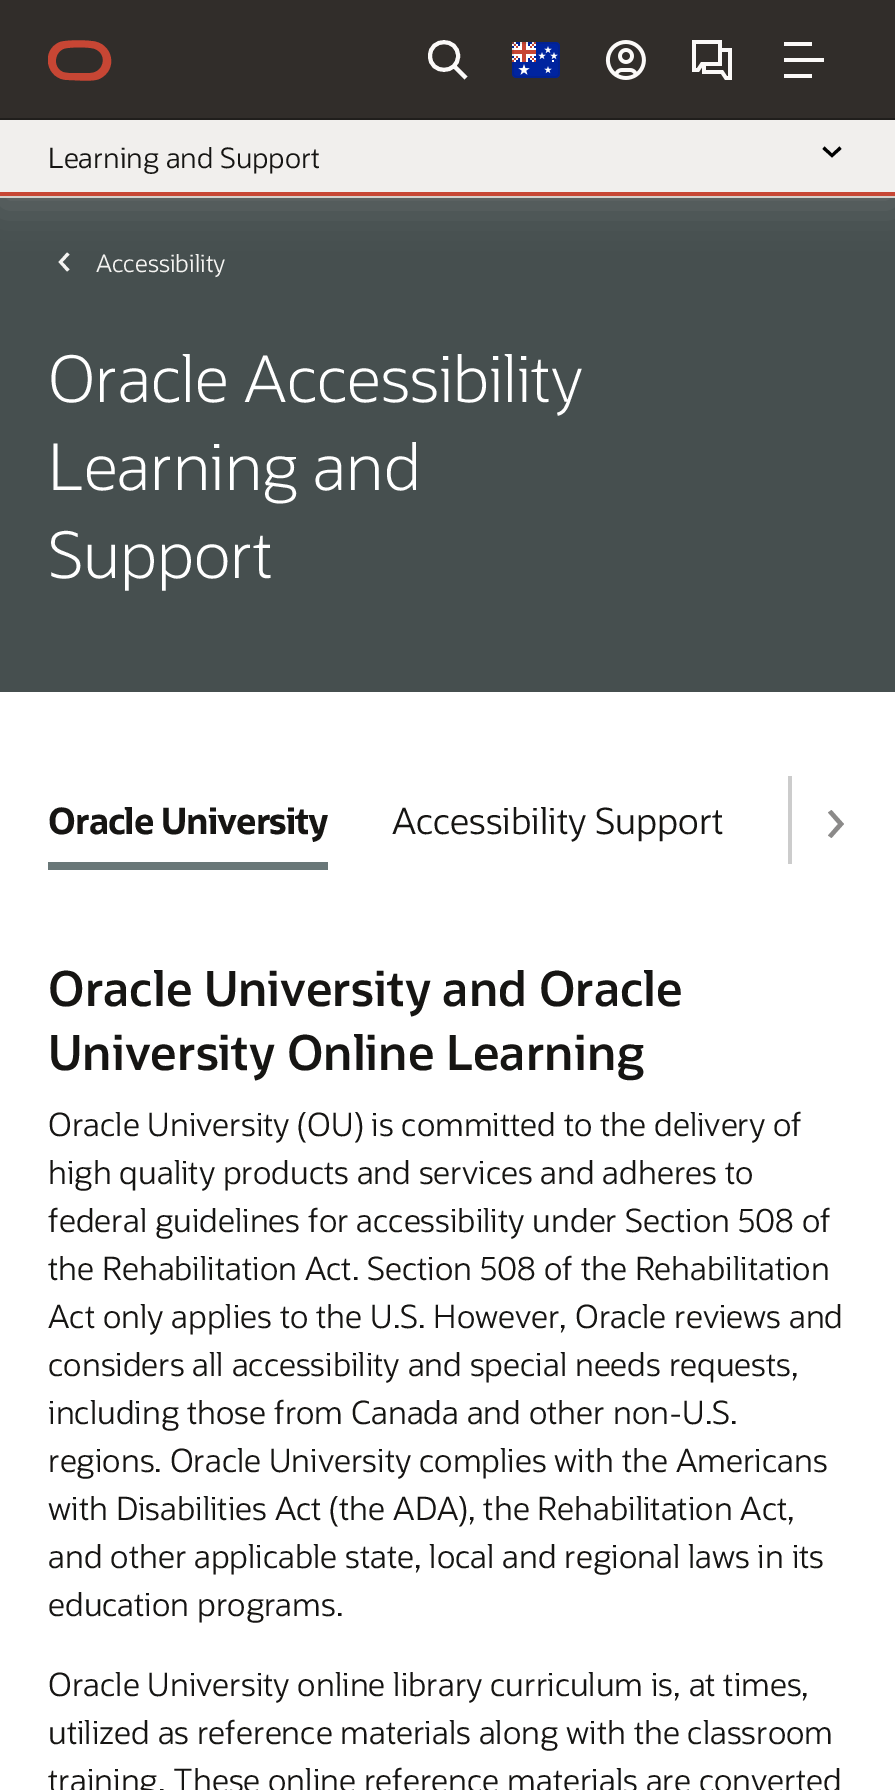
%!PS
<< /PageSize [895 1790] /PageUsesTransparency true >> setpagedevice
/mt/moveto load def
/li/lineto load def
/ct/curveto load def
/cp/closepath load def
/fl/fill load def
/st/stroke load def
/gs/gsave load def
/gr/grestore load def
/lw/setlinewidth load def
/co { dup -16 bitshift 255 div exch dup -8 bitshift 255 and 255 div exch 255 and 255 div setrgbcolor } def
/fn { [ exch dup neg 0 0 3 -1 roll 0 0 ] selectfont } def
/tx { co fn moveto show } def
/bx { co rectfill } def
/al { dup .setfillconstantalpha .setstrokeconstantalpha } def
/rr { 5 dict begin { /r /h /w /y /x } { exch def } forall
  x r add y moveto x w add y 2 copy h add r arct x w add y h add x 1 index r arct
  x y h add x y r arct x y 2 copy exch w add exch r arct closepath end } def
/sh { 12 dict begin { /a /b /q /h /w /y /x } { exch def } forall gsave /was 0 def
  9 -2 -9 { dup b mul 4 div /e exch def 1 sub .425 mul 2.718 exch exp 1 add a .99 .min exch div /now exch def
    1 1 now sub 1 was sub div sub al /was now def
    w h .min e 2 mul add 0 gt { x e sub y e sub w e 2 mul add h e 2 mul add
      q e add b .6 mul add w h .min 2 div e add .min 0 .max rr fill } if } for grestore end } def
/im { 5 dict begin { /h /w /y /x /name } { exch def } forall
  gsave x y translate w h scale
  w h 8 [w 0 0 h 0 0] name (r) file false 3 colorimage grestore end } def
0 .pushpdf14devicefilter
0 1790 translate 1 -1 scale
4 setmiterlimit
0 0 895 1790 16#FFFFFF bx
0 198 895 494 16#464F4F bx
16#F5F4F2 co
69.5 254.5 mt 67 252.5 li 58.5 262 li 67 271.5 li 69.5 269.5 li 62.5 262 li cp fl
16#D4CFCA co
0 130 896 76 0 20 .2 sh
0 0 895 118 16#312D2A bx
gs
48 40 64 42 rectclip
16#C74634 co
68 80 mt 46 80 40 50 60 42 ct 66 40 84 40 91 41 ct 113 42 119 70 99 79 ct 92 82 76 80 68 80 ct 90 73 mt 104 73 108 54 95 49 ct 91 47 74 47 68 48 ct 55 48 51 67 63 72 ct 68 74 84 73 90 73 ct fl
gr
16#FBF9F8 co
4 lw
454 66 mt 466 78 li 458 56 mt 458 74.5 430 74.5 430 56 ct 430 37.5 458 37.5 458 56 ct cp st
(media/1.raw) 512 42 48 36 im
(media/2.raw) 605 40 41 40 im
(media/3.raw) 692 40 40 40 im
(media/4.raw) 784 42 40 36 im
0 118 895 2 16#201E1C bx
0 120 895 72 16#F1EFED bx
16#000000 co
824.5 146.5 mt 822.5 149 li 832 157.5 li 841.5 149 li 839.5 146.5 li 832 153.5 li cp fl
0 192 895 4 16#C74634 bx
0 196 895 2 16#D4CFCA bx
48 862 280 8 16#697778 bx
788 776 4 88 16#CCCCCC bx
16#8B8A89 co
828 835.5 mt 831.5 838 li 844 824 li 831.5 810 li 828 812.5 li 838 824 li cp fl
(Learning and Support) 48 168 /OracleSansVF-Light 28 16#161513 tx
(Accessibility) 96 272 /OracleSansVF-Light 24 16#F5F4F2 tx
(Oracle Accessibility) 48 402 /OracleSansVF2-Light 64 16#FFFFFF tx
(Learning and) 48 490 /OracleSansVF2-Light 64 16#FFFFFF tx
(Support) 48 578 /OracleSansVF2-Light 64 16#FFFFFF tx
/OracleSansVF-Bold 36 fn
16#161513 co
48 834 mt -1 0 (Oracle University) ashow
(Accessibility Support) 392 834 /OracleSansVF-Light 36 16#161513 tx
(Oracle University and Oracle) 48 1006 /OracleSansVF-SemiBold 48 16#161513 tx
(University Online Learning) 48 1070 /OracleSansVF-SemiBold 48 16#161513 tx
(Oracle University \(OU\) is committed to the delivery of) 48 1136 /OracleSansVF-Light 32 16#161513 tx
(high quality products and services and adheres to) 48 1184 /OracleSansVF-Light 32 16#161513 tx
(federal guidelines for accessibility under Section 508 of) 48 1232 /OracleSansVF-Light 32 16#161513 tx
(the Rehabilitation Act. Section 508 of the Rehabilitation) 48 1280 /OracleSansVF-Light 32 16#161513 tx
(Act only applies to the U.S. However, Oracle reviews and) 48 1328 /OracleSansVF-Light 32 16#161513 tx
(considers all accessibility and special needs requests,) 48 1376 /OracleSansVF-Light 32 16#161513 tx
(including those from Canada and other non-U.S.) 48 1424 /OracleSansVF-Light 32 16#161513 tx
(regions. Oracle University complies with the Americans) 48 1472 /OracleSansVF-Light 32 16#161513 tx
(with Disabilities Act \(the ADA\), the Rehabilitation Act,) 48 1520 /OracleSansVF-Light 32 16#161513 tx
(and other applicable state, local and regional laws in its) 48 1568 /OracleSansVF-Light 32 16#161513 tx
(education programs.) 48 1616 /OracleSansVF-Light 32 16#161513 tx
(Oracle University online library curriculum is, at times,) 48 1696 /OracleSansVF-Light 32 16#161513 tx
(utilized as reference materials along with the classroom) 48 1744 /OracleSansVF-Light 32 16#161513 tx
(training. These online reference materials are converted) 48 1792 /OracleSansVF-Light 32 16#161513 tx
.poppdf14devicefilter showpage
